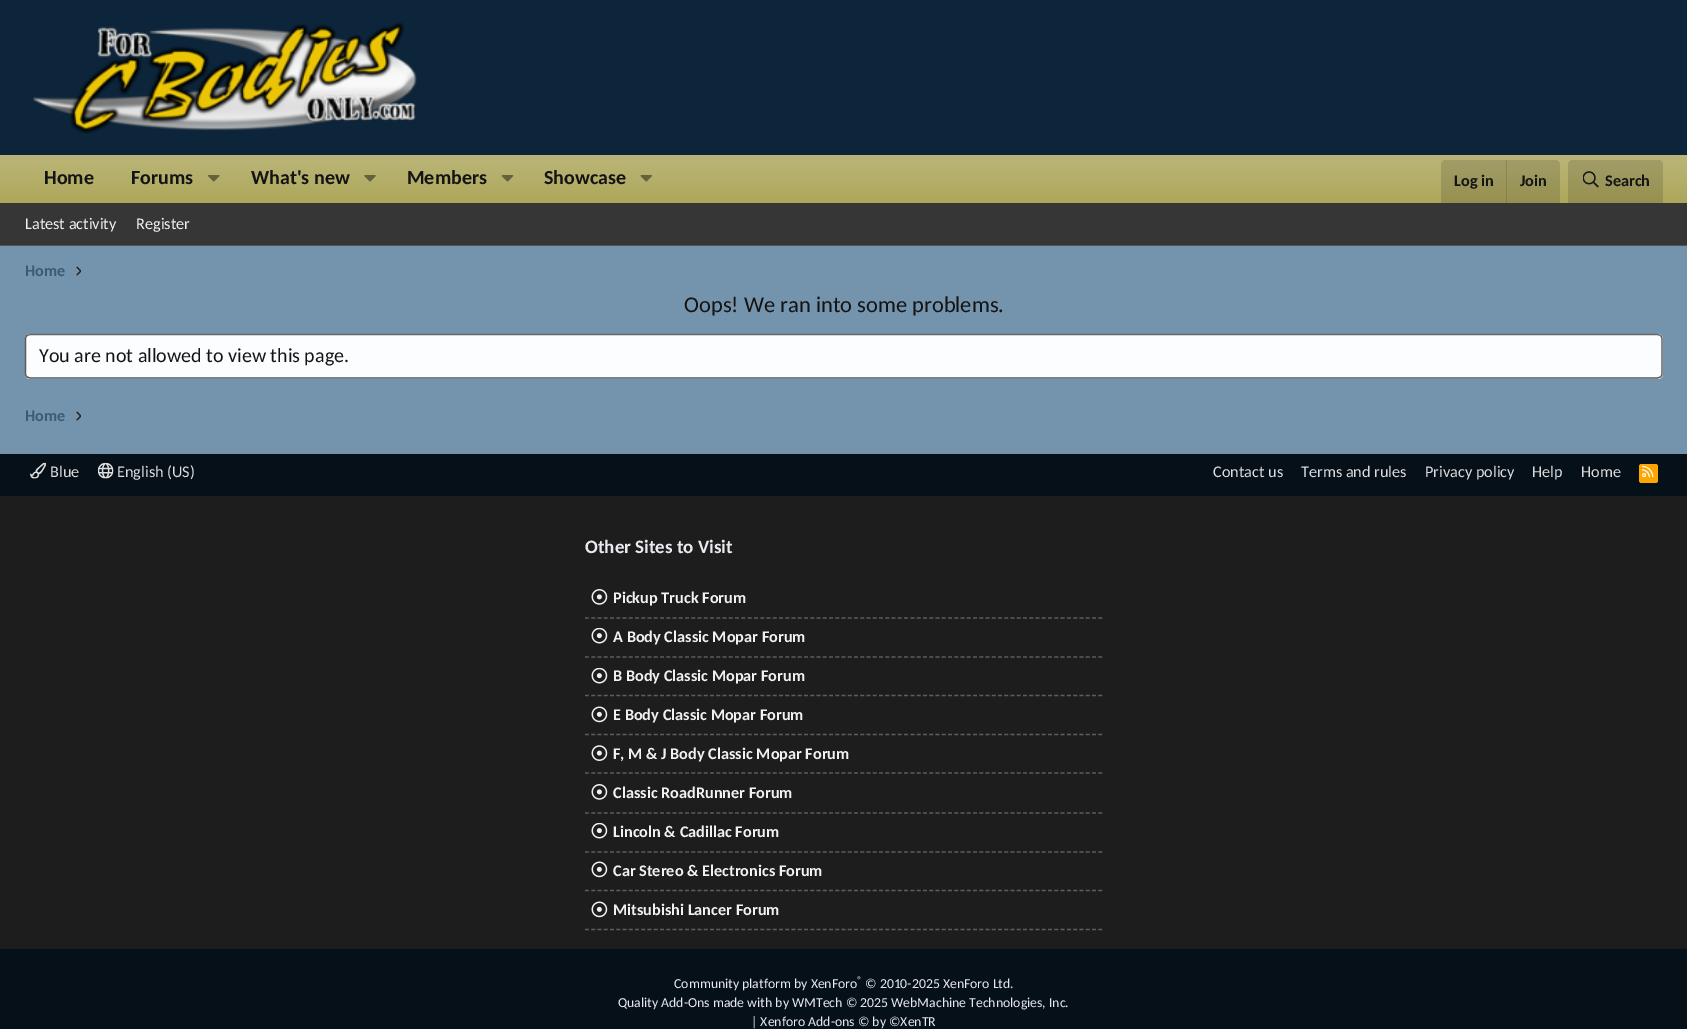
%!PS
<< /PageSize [1687 1029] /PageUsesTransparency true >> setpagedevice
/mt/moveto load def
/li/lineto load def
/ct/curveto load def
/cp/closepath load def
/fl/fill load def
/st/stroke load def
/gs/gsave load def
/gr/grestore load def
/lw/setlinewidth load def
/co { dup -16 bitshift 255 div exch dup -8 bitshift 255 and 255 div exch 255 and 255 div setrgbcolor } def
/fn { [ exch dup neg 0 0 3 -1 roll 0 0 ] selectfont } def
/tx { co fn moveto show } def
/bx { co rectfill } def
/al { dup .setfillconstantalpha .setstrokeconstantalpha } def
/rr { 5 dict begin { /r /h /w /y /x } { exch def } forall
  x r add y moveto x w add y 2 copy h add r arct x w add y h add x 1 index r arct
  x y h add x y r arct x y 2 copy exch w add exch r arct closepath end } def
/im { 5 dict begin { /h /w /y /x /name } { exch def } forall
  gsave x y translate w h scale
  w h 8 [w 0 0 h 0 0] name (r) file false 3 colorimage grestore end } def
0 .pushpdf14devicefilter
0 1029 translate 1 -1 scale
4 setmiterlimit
0 0 1687 1029 16#7493AD bx
0 0 1687 155 16#0C253B bx
(media/1.raw) 33 22 384 112 im
gs 0 155 mt 1687 155 li 1687 203 li 0 203 li cp clip newpath
<< /ShadingType 2 /ColorSpace /DeviceRGB /Coords [844 155 844 203] /Extend [true true] /Function << /FunctionType 2 /Domain [0 1] /C0 [.733 .714 .471] /C1 [.678 .655 .357] /N 1 >> >> shfill gr
(media/2.raw) 208 175 12 7 im
(media/3.raw) 364 175 12 7 im
(media/4.raw) 501 175 13 7 im
(media/5.raw) 640 175 12 7 im
0.15 al
16#141414 co
1446 160 mt 1555 160 li 1558 160 1560 162 1560 165 ct 1560 203 li 1441 203 li 1441 165 li 1441 162 1443 160 1446 160 ct cp fl
1506 160 1 43 16#141414 bx
1573 160 mt 1658 160 li 1661 160 1663 162 1663 165 ct 1663 203 li 1568 203 li 1568 165 li 1568 162 1570 160 1573 160 ct cp fl
1 al
(media/6.raw) 1583 171 16 17 im
0 203 1687 42 16#363636 bx
0 245 1687 1 16#535353 bx
(media/7.raw) 76 266 5 10 im
16#FCFDFF co
25 334 1638 45 5 rr fl
16#676767 co
1.2 lw
27 335.5 mt 30 334.5 li 1657.5 334.5 li 1660.5 335.5 li st
16#5D5D5D co
1660.5 335.5 mt 1661.5 336.5 1662 337.5 1662 339 ct 1662 374 li 1662 375 1661.5 376 1660.5 377 ct st
16#535353 co
1660.5 377 mt 1657.5 378 li 30 378 li 27 377 li st
16#5D5D5D co
27 377 mt 26 376 25.5 375 25.5 374 ct 25.5 339 li 25.5 337.5 26 336.5 27 335.5 ct st
(media/7.raw) 76 411 5 10 im
0 454 1687 575 16#051019 bx
(media/8.raw) 30 462 16 17 im
(media/9.raw) 97 462 17 17 im
16#FFA500 co
1639 464 19 19 2.5 rr fl
(media/10.raw) 1642 465 12 13 im
0 496 1687 453 16#1D1D1D bx
16#5D5D5D co
[3.75 2.51] 0 setdash
585 618 mt 1102.5 618 li st
(media/11.raw) 591 589 17 16 im
585 657 mt 1102.5 657 li st
(media/12.raw) 591 628 17 16 im
585 695.5 mt 1102.5 695.5 li st
(media/12.raw) 591 668 17 16 im
585 734.5 mt 1102.5 734.5 li st
(media/13.raw) 591 706 17 17 im
585 773 mt 1102.5 773 li st
(media/14.raw) 591 745 17 16 im
585 813 mt 1102.5 813 li st
(media/11.raw) 591 784 17 16 im
585 852 mt 1102.5 852 li st
(media/12.raw) 591 823 17 16 im
585 890.5 mt 1102.5 890.5 li st
(media/13.raw) 591 861 17 17 im
585 929.5 mt 1102.5 929.5 li st
(media/13.raw) 591 901 17 17 im
(Home) 44 184 /Carlito-Bold 20 16#141414 tx
(Forums) 131 184 /Carlito-Bold 20 16#141414 tx
(What's new) 251 184 /Carlito-Bold 20 16#141414 tx
(Members) 407 184 /Carlito-Bold 20 16#141414 tx
(Showcase) 544 184 /Carlito-Bold 20 16#141414 tx
(Log in) 1454 186 /Carlito-Bold 16.25 16#141414 tx
(Join) 1520 186 /Carlito-Bold 16.25 16#141414 tx
(Search) 1605 186 /Carlito-Bold 16.25 16#141414 tx
(Latest activity) 25 229 /Carlito-Regular 16.25 16#F1F1F1 tx
(Register) 136 229 /Carlito-Regular 16.25 16#F1F1F1 tx
(Home) 25 276 /Carlito-Bold 16.25 16#3E5A72 tx
(Oops! We ran into some problems.) 684 312 /Carlito-Regular 22.5 16#141414 tx
(You are not allowed to view this page.) 39 362 /Carlito-Regular 20 16#141414 tx
(Home) 25 421 /Carlito-Bold 16.25 16#3E5A72 tx
(Blue) 50 477 /Carlito-Regular 16.25 16#DDDDDD tx
(English \(US\)) 117 477 /Carlito-Regular 16.25 16#DDDDDD tx
(Contact us) 1213 477 /Carlito-Regular 16.25 16#DDDDDD tx
(Terms and rules) 1301 477 /Carlito-Regular 16.25 16#DDDDDD tx
(Privacy policy) 1425 477 /Carlito-Regular 16.25 16#DDDDDD tx
(Help) 1532 477 /Carlito-Regular 16.25 16#DDDDDD tx
(Home) 1581 477 /Carlito-Regular 16.25 16#DDDDDD tx
(Other Sites to Visit) 585 553 /Carlito-Bold 19 16#E9E9EF tx
(Pickup Truck Forum) 613 603 /Carlito-Bold 16.25 16#F1F1F1 tx
(A Body Classic Mopar Forum) 613 642 /Carlito-Bold 16.25 16#F1F1F1 tx
(B Body Classic Mopar Forum) 613 681 /Carlito-Bold 16.25 16#F1F1F1 tx
(E Body Classic Mopar Forum) 613 720 /Carlito-Bold 16.25 16#F1F1F1 tx
(F, M & J Body Classic Mopar Forum) 613 759 /Carlito-Bold 16.25 16#F1F1F1 tx
(Classic RoadRunner Forum) 613 798 /Carlito-Bold 16.25 16#F1F1F1 tx
(Lincoln & Cadillac Forum) 613 837 /Carlito-Bold 16.25 16#F1F1F1 tx
(Car Stereo & Electronics Forum) 613 876 /Carlito-Bold 16.25 16#F1F1F1 tx
(Mitsubishi Lancer Forum) 613 915 /Carlito-Bold 16.25 16#F1F1F1 tx
(®) 857 983 /Carlito-Regular 10 16#E9E9EF tx
(Community platform by XenForo) 674 988 /Carlito-Regular 13.75 16#E9E9EF tx
(© 2010-2025 XenForo Ltd.) 865 988 /Carlito-Regular 13.75 16#E9E9EF tx
(Quality Add-Ons made with by WMTech © 2025 WebMachine Technologies, Inc.) 618 1007 /Carlito-Regular 13.75 16#E9E9EF tx
(| Xenforo Add-ons © by ©XenTR) 751 1026 /Carlito-Regular 13.75 16#E9E9EF tx
.poppdf14devicefilter showpage
